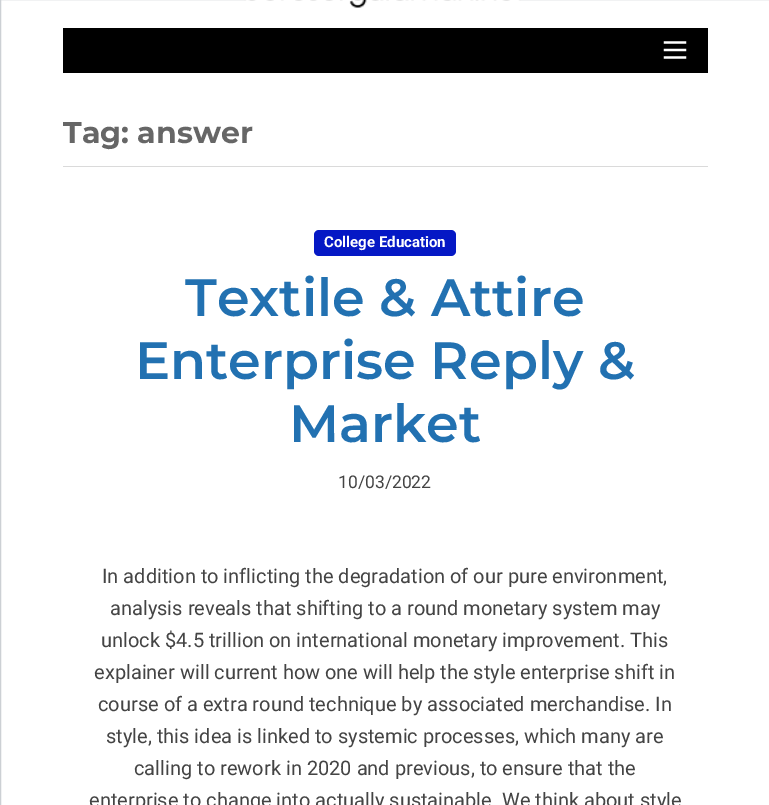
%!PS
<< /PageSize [769 805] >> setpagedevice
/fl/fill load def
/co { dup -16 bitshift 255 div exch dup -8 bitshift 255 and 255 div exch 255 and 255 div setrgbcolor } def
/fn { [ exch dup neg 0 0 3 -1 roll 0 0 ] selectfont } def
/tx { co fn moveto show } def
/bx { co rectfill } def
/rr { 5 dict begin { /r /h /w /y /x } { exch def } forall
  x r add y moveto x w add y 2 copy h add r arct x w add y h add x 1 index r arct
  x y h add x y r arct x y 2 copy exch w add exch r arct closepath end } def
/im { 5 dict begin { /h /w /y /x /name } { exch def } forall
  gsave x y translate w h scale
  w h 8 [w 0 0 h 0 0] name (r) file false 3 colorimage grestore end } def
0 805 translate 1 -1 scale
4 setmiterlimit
0 0 769 805 16#FFFFFF bx
16#CCD0D4 co
.5 -.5 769 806 rectstroke
(media/1.raw) 244 0 277 8 im
63 28 645 45 16#000000 bx
(media/2.raw) 663 41 24 18 im
63 166 645 1 16#DADADA bx
16#0518C5 co
314 230 142 26 5 rr fl
(Tag: answer) 63 143 /Montserrat-Bold 30 16#666666 tx
(College Education) 324 247 /Roboto-Bold 15 16#FFFFFF tx
(Textile & Attire) 185 316 /Montserrat-SemiBold 52.5 16#2271B1 tx
(Enterprise Reply &) 135 379 /Montserrat-SemiBold 52.5 16#2271B1 tx
(Market) 289 442 /Montserrat-SemiBold 52.5 16#2271B1 tx
(10/03/2022) 338 488 /Roboto-Regular 17.5 16#444444 tx
(In addition to inflicting the degradation of our pure environment,) 102 583 /Roboto-Regular 20 16#444444 tx
(analysis reveals that shifting to a round monetary system may) 110 615 /Roboto-Regular 20 16#444444 tx
(unlock $4.5 trillion on international monetary improvement. This) 101 647 /Roboto-Regular 20 16#444444 tx
(explainer will current how one will help the style enterprise shift in) 94 679 /Roboto-Regular 20 16#444444 tx
(course of a extra round technique by associated merchandise. In) 98 711 /Roboto-Regular 20 16#444444 tx
(style, this idea is linked to systemic processes, which many are) 106 743 /Roboto-Regular 20 16#444444 tx
(calling to rework in 2020 and previous, to ensure that the) 134 775 /Roboto-Regular 20 16#444444 tx
(enterprise to change into actually sustainable. We think about style) 89 807 /Roboto-Regular 20 16#444444 tx
showpage
